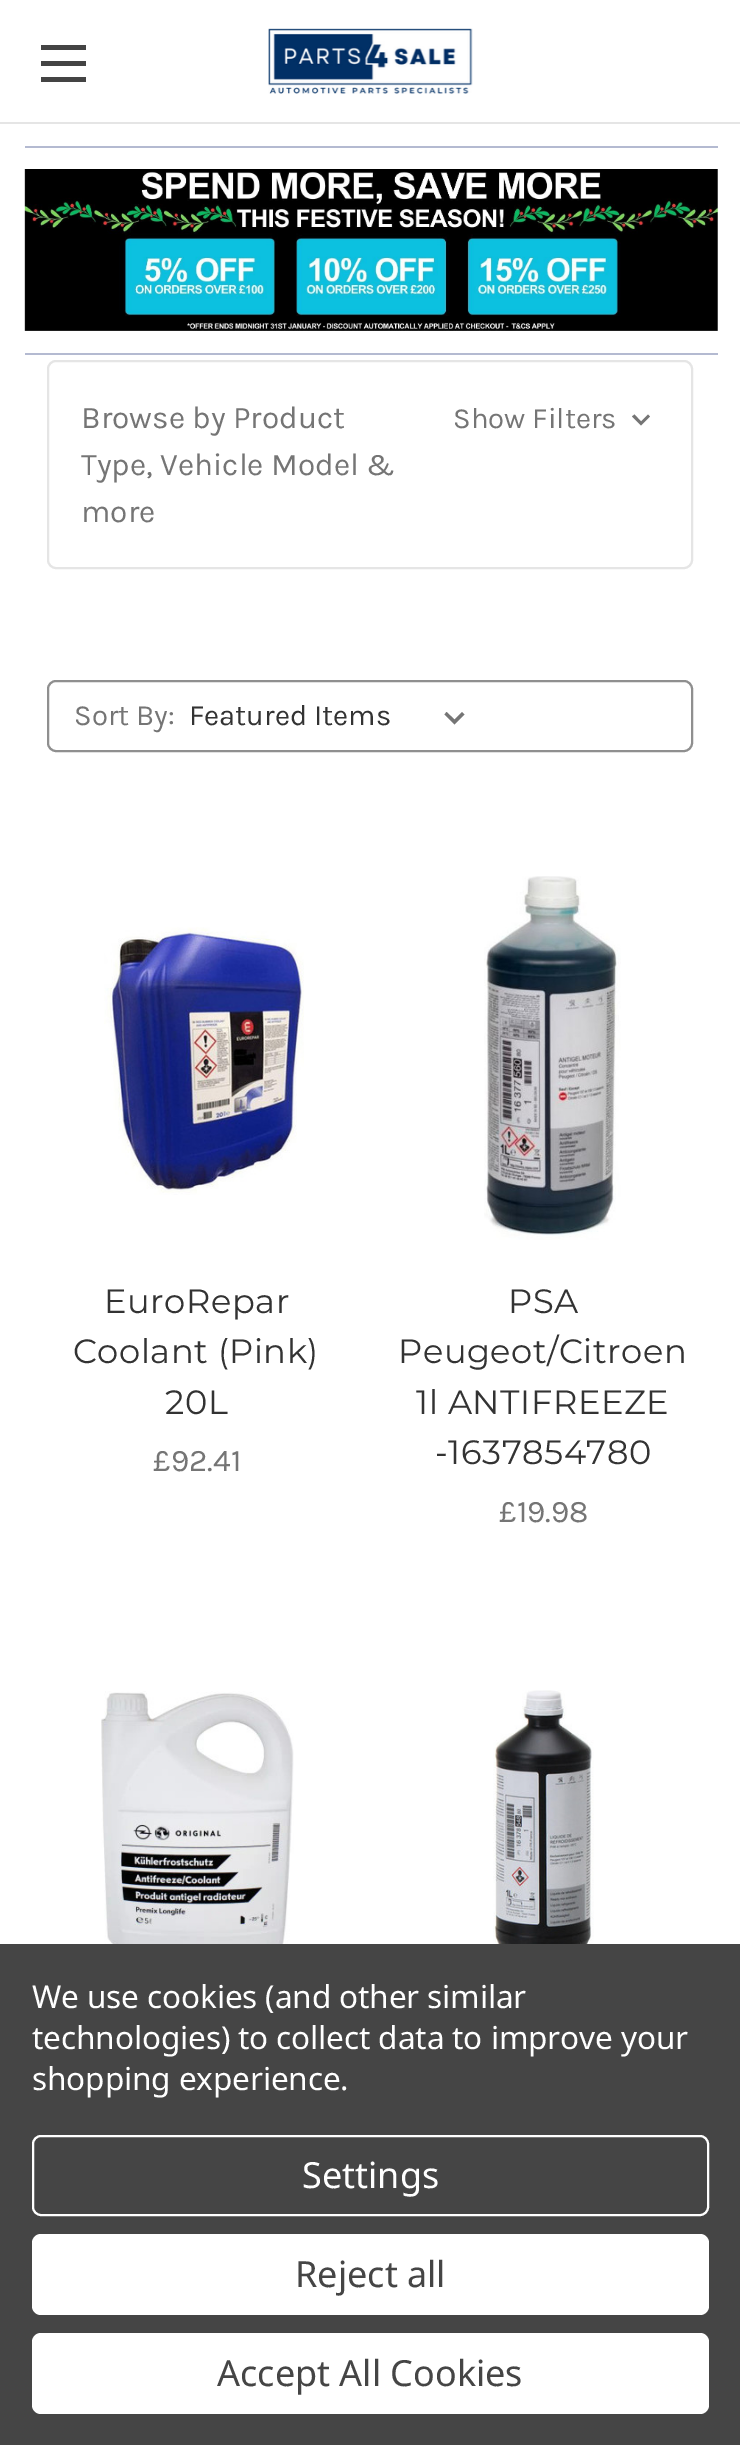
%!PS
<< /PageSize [740 2445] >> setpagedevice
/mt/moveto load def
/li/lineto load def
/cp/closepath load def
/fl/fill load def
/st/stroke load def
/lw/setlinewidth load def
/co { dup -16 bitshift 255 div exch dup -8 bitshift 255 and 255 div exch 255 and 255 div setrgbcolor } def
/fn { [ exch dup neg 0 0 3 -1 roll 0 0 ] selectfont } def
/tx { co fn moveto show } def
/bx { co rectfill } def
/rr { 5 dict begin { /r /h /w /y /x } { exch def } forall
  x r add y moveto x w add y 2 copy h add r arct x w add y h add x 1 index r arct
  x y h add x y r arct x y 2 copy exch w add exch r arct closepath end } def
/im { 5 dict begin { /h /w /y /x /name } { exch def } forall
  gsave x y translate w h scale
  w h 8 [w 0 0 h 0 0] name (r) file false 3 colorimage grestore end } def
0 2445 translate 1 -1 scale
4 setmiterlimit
0 0 740 2445 16#FFFFFF bx
0 122 740 2 16#E5E5E5 bx
41 61 45 5 16#444444 bx
41 45 45 5 16#444444 bx
41 77 45 5 16#444444 bx
(media/1.raw) 268 28 205 66 im
25 146 693 2 16#B4BAD1 bx
(media/2.raw) 24 169 694 162 im
25 353 693 2 16#B4BAD1 bx
16#E5E5E5 co
2 lw
48 361 644 207 8 rr st
16#757575 co
634.5 414.5 mt 641 421.5 li 648 414.5 li 650 416.5 li 641 425.5 li 632 416.5 li cp fl
16#8F8F8F co
48 681 644 70 8 rr st
16#757575 co
462 712 mt 454.5 719.5 li 446.5 712 li 444.5 714.5 li 454.5 724.5 li 464.5 714.5 li cp fl
(media/3.raw) 104 927 200 268 im
(media/4.raw) 484 876 137 364 im
(media/5.raw) 101 1691 193 253 im
(media/6.raw) 493 1690 101 254 im
0 1944 740 501 16#454545 bx
16#FFFFFF co
33 2136 675 79 8 rr st
32 2234 677 81 9 rr fl
32 2333 677 81 9 rr fl
(Browse by Product) 81 428 /Karla-Regular 31.5 16#757575 tx
(Type, Vehicle Model &) 81 475 /Karla-Regular 31.5 16#757575 tx
(more) 81 522 /Karla-Regular 31.5 16#757575 tx
(Show Filters) 453 428 /Karla-Regular 29.25 16#757575 tx
(Sort By:) 74 725 /Karla-Regular 29.25 16#757575 tx
(Featured Items) 189 725 /Karla-Regular 29.25 16#333333 tx
/Montserrat-Regular 33.75 fn
104 1313 mt .5 0 (EuroRepar) ashow
73 1363 mt .5 0 (Coolant \(Pink\)) ashow
165 1414 mt .5 0 (20L) ashow
(£92.41) 153 1471 /Karla-Regular 31.5 16#757575 tx
/Montserrat-Regular 33.75 fn
16#333333 co
508 1313 mt .5 0 (PSA) ashow
398 1363 mt .5 0 (Peugeot/Citroen) ashow
416 1414 mt .5 0 (1l ANTIFREEZE) ashow
435 1464 mt .5 0 (-1637854780) ashow
(£19.98) 499 1522 /Karla-Regular 31.5 16#757575 tx
/NotoSans-Regular 31.5 fn
16#FFFFFF co
32 2008 mt -.1 0 (We use cookies \(and other similar) ashow
32 2049 mt -.1 0 (technologies\) to collect data to improve your) ashow
32 2090 mt -.1 0 (shopping experience.) ashow
(Settings) 302 2188 /NotoSans-Regular 36 16#FFFFFF tx
(Reject all) 295 2287 /NotoSans-Regular 36 16#454545 tx
(Accept All Cookies) 217 2386 /NotoSans-Regular 36 16#454545 tx
showpage
